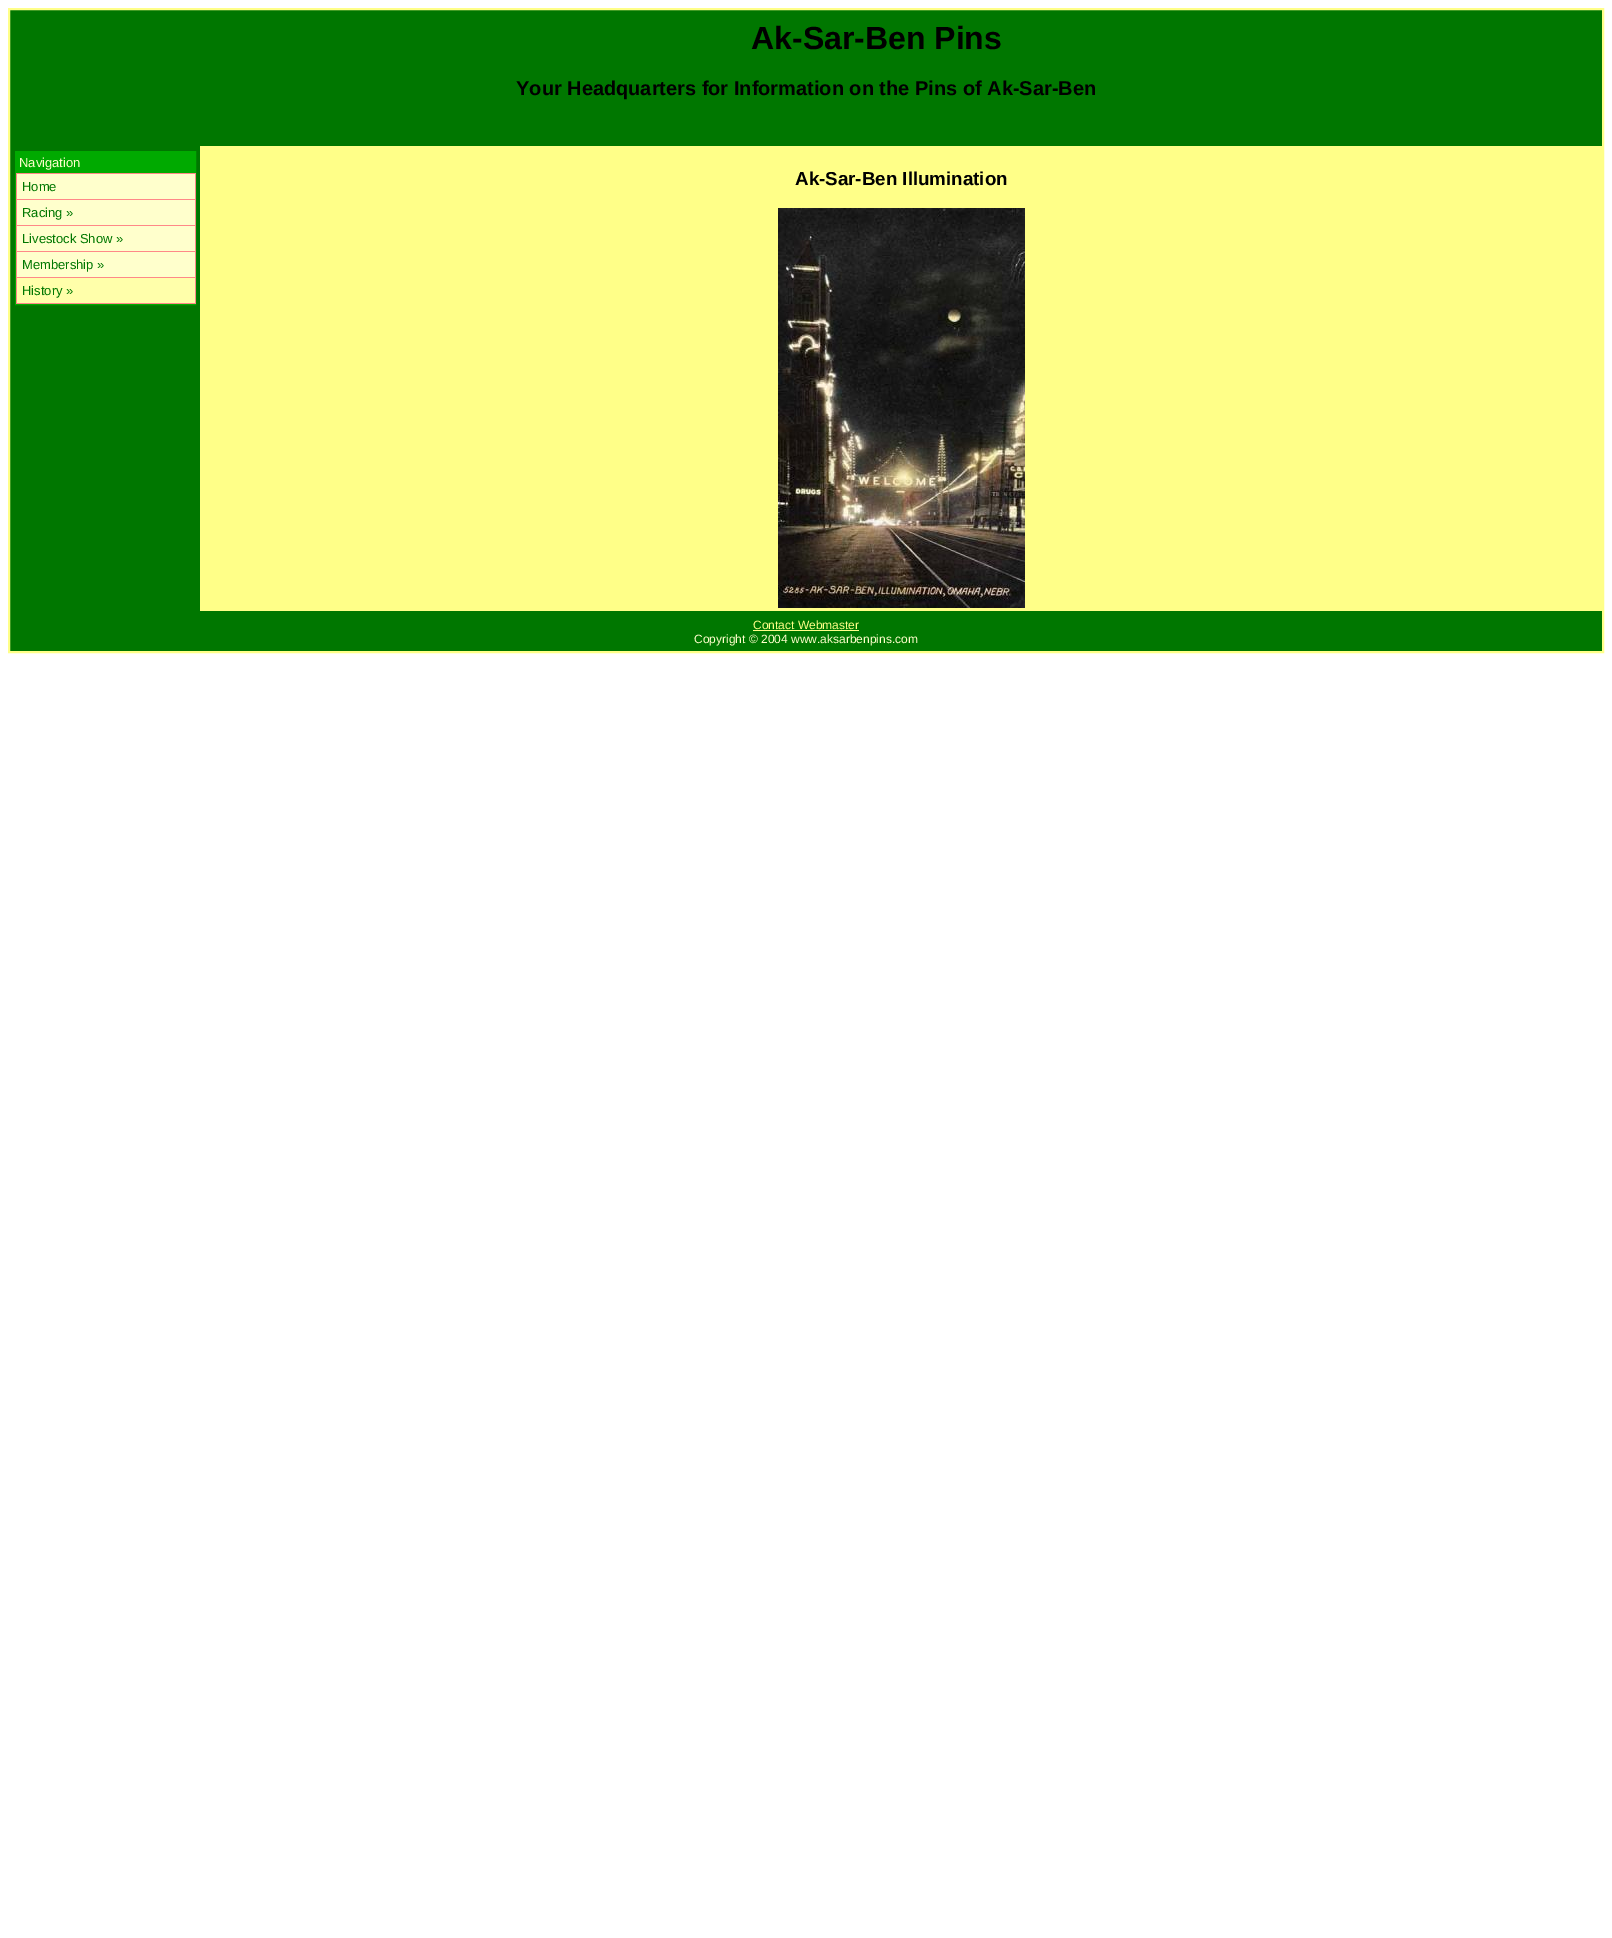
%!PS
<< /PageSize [1612 1938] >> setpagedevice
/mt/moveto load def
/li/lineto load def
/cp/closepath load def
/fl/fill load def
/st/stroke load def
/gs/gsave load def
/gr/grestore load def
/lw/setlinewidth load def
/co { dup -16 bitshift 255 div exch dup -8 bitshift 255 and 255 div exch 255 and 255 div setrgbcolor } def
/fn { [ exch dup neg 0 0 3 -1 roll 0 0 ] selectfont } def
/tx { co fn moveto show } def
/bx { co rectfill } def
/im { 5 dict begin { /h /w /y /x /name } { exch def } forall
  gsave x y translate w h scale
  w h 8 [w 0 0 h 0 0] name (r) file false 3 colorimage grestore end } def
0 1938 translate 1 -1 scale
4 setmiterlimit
0 0 1612 1938 16#FFFFFF bx
16#007700 co
9 9 mt 1603 9 li 1603 652 li 9 652 li cp gs fl gr
16#FFFF88 co
2 lw
st
16#00AA00 co
1 lw
15.5 151.5 180 153 rectstroke
16 152 179 21 16#00AA00 bx
16 303 180 1 16#FF8888 bx
17 174 178 25 16#FFFFCC bx
16 173 180 1 16#FF8888 bx
195 173 1 26 16#FF8888 bx
16 173 1 26 16#FF8888 bx
17 200 178 25 16#FFFFCC bx
16 199 180 1 16#FF8888 bx
195 199 1 26 16#FF8888 bx
16 199 1 26 16#FF8888 bx
17 226 178 25 16#FFFFCC bx
16 225 180 1 16#FF8888 bx
195 225 1 26 16#FF8888 bx
16 225 1 26 16#FF8888 bx
17 252 178 25 16#FFFFCC bx
16 251 180 1 16#FF8888 bx
195 251 1 26 16#FF8888 bx
16 251 1 26 16#FF8888 bx
17 278 178 25 16#FFFFAA bx
16 277 180 1 16#FF8888 bx
195 277 1 26 16#FF8888 bx
16 277 1 26 16#FF8888 bx
200 146 1402 465 16#FFFF88 bx
(media/1.raw) 778 208 247 400 im
753 630 106 1 16#FFFF88 bx
(Ak-Sar-Ben Pins) 751 49 /LiberationSans-Bold 32 16#000000 tx
(Your Headquarters for Information on the Pins of Ak-Sar-Ben) 516 95 /LiberationSans-Bold 20 16#000000 tx
(Navigation) 19 167 /LiberationSans-Regular 13 16#FFFFCC tx
(Home) 22 191 /LiberationSans-Regular 13 16#007700 tx
(Racing ») 22 217 /LiberationSans-Regular 13 16#007700 tx
(Livestock Show ») 22 243 /LiberationSans-Regular 13 16#007700 tx
(Membership ») 22 269 /LiberationSans-Regular 13 16#007700 tx
(History ») 22 295 /LiberationSans-Regular 13 16#007700 tx
(Ak-Sar-Ben Illumination) 795 185 /LiberationSans-Bold 18.75 16#000000 tx
(Contact Webmaster) 753 629 /LiberationSans-Regular 12 16#FFFF88 tx
(Copyright © 2004 www.aksarbenpins.com) 694 643 /LiberationSans-Regular 12 16#FFFFCC tx
showpage
